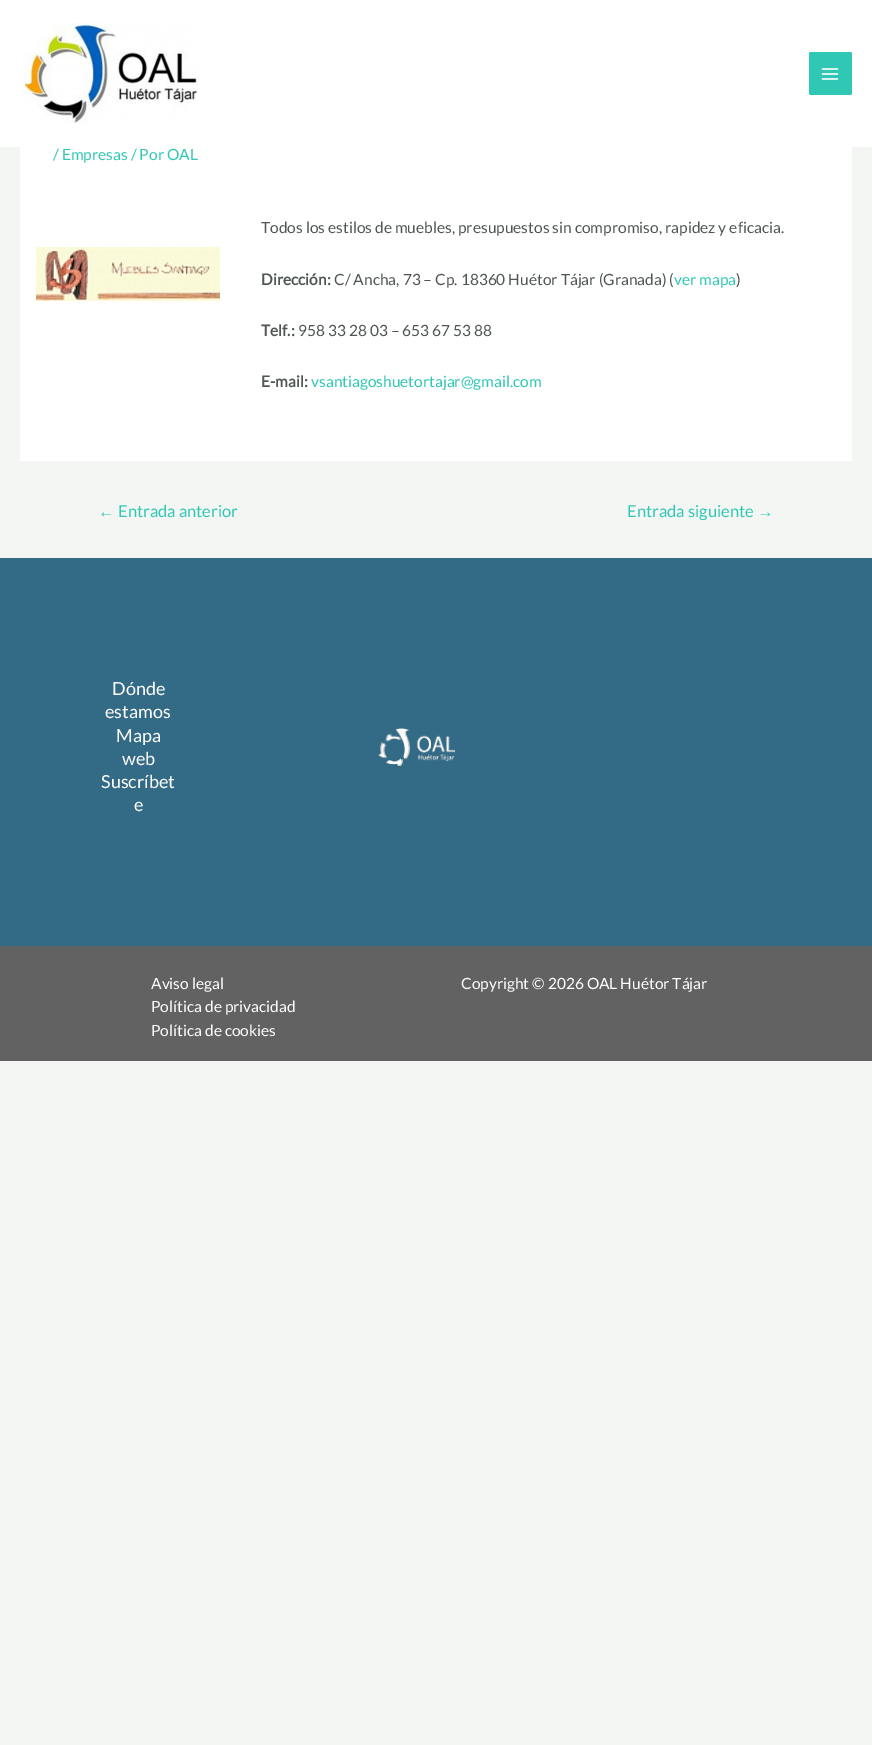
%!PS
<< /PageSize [872 1745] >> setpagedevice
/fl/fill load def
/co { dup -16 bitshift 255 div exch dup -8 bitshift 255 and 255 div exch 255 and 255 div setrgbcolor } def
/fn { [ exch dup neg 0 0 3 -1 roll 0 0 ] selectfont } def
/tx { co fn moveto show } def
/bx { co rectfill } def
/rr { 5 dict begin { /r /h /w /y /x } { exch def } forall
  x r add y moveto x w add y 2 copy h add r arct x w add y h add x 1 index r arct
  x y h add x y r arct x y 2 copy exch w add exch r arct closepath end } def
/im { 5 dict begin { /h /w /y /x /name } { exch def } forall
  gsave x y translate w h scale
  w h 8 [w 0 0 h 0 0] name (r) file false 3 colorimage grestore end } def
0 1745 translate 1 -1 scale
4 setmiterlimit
0 0 872 1745 16#F3F6F3 bx
0 0 872 147 16#FFFFFF bx
(media/1.raw) 23 23 175 100 im
16#30C7B5 co
809 52 43 43 2 rr fl
(media/2.raw) 821 68 18 12 im
20 147 832 314 16#FFFFFF bx
(media/3.raw) 36 247 184 54 im
0 558 872 388 16#336B86 bx
(media/4.raw) 378 728 77 38 im
0 946 872 115 16#626262 bx
(/ Empresas / Por OAL) 53 160 /Lato-Regular 15.5 16#30C7B5 tx
(Todos los estilos de muebles, presupuestos sin compromiso, rapidez y eficacia.) 261 233 /Lato-Regular 15.5 16#4F5655 tx
(Dirección:) 261 285 /Lato-Bold 15.5 16#4F5655 tx
(C/ Ancha, 73 – Cp. 18360 Huétor Tájar \(Granada\) \() 334 285 /Lato-Regular 15.5 16#4F5655 tx
(ver mapa) 674 285 /Lato-Regular 15.5 16#30C7B5 tx
(\)) 736 285 /Lato-Regular 15.5 16#4F5655 tx
(Telf.:) 261 336 /Lato-Bold 15.5 16#4F5655 tx
(958 33 28 03 – 653 67 53 88) 298 336 /Lato-Regular 15.5 16#4F5655 tx
(E-mail:) 261 387 /Lato-Bold 15.5 16#4F5655 tx
(vsantiagoshuetortajar@gmail.com) 311 387 /Lato-Regular 15.5 16#30C7B5 tx
(←) 98 517 /LiberationSans-Regular 16.5 16#30C7B5 tx
(Entrada anterior) 118 517 /Lato-Regular 16.5 16#30C7B5 tx
(Entrada siguiente) 627 517 /Lato-Regular 16.5 16#30C7B5 tx
(→) 757 517 /LiberationSans-Regular 16.5 16#30C7B5 tx
(Dónde) 112 695 /Lato-Regular 18 16#FFFFFF tx
(estamos) 105 718 /Lato-Regular 18 16#FFFFFF tx
(Mapa) 116 742 /Lato-Regular 18 16#FFFFFF tx
(web) 122 765 /Lato-Regular 18 16#FFFFFF tx
(Suscríbet) 101 788 /Lato-Regular 18 16#FFFFFF tx
(e) 134 811 /Lato-Regular 18 16#FFFFFF tx
(Aviso legal) 151 989 /Lato-Regular 15.5 16#FFFFFF tx
(Política de privacidad) 151 1012 /Lato-Regular 15.5 16#FFFFFF tx
(Política de cookies) 151 1036 /Lato-Regular 15.5 16#FFFFFF tx
(Copyright © 2026 OAL Huétor Tájar) 461 989 /Lato-Regular 15.5 16#FFFFFF tx
showpage
